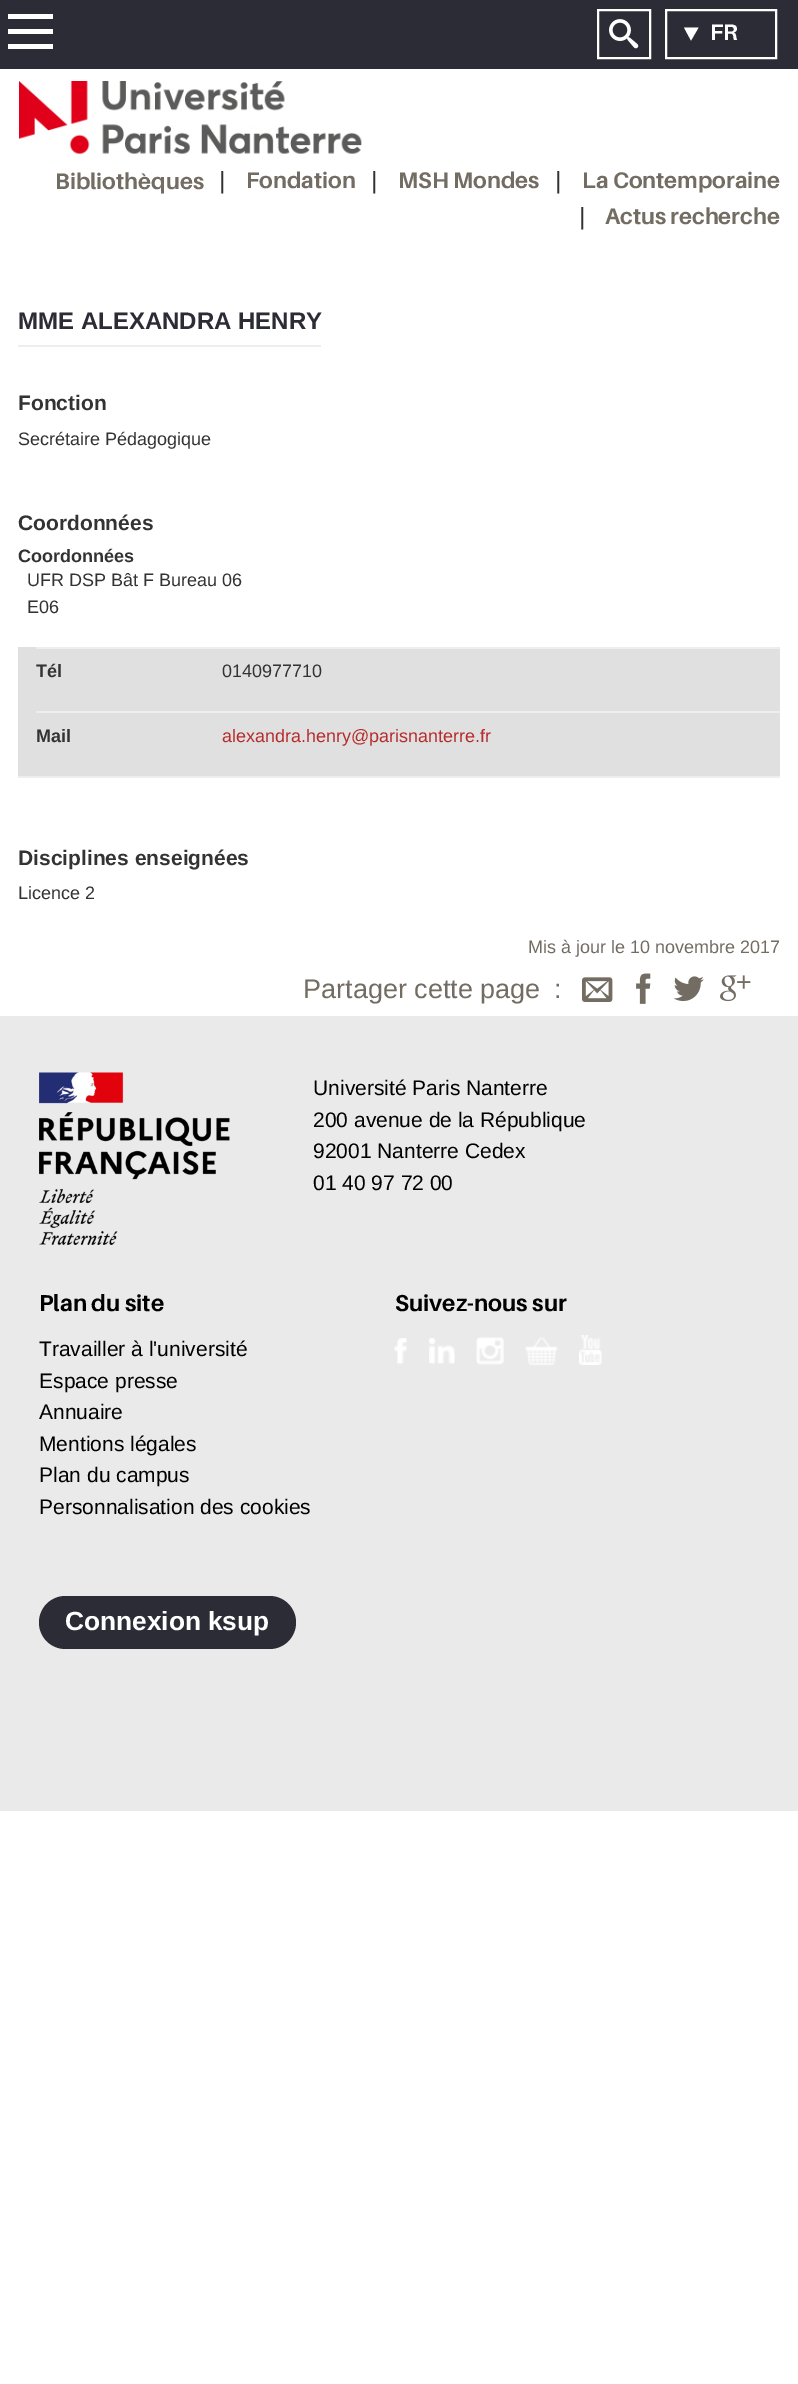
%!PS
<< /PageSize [798 2384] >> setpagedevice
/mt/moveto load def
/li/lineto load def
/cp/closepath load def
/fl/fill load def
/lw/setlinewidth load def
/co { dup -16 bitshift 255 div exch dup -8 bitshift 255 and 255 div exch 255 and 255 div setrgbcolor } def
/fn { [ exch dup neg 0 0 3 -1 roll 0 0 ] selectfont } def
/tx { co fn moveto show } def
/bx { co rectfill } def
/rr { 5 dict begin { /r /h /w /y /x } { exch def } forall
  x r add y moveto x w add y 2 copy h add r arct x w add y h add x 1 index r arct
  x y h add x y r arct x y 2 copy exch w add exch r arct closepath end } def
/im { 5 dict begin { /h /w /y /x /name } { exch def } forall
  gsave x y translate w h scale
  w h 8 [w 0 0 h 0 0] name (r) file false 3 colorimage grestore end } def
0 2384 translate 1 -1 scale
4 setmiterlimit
0 0 798 2384 16#FFFFFF bx
0 0 798 69 16#2C2C36 bx
8 29 45 5 16#FFFFFF bx
8 14 45 5 16#FFFFFF bx
8 44 45 5 16#FFFFFF bx
2 lw
598 10 52 48 rectstroke
(media/1.raw) 609 19 30 30 im
666 10 110 48 rectstroke
684 27.5 mt 698.5 27.5 li 691 40.5 li cp fl
(media/2.raw) 19 81 343 73 im
18 345 303 2 16#EEEEEE bx
18 647 762 129 16#E0E0E0 bx
18 776 762 2 16#EEEEEE bx
36 647 744 2 16#EEEEEE bx
36 711 744 2 16#EEEEEE bx
(media/3.raw) 582 977 31 25 im
(media/4.raw) 636 973 15 31 im
(media/5.raw) 673 976 31 26 im
(media/6.raw) 720 975 31 27 im
0 1016 798 795 16#EAEAEA bx
(media/7.raw) 39 1072 191 173 im
(media/8.raw) 394 1338 13 26 im
(media/9.raw) 429 1338 26 26 im
(media/10.raw) 476 1337 28 28 im
(media/11.raw) 525 1337 33 28 im
(media/12.raw) 579 1335 23 30 im
16#2C2C36 co
39 1596 257 53 26.5 rr fl
(FR) 710 40 /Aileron-Bold 22.5 16#FFFFFF tx
(Bibliothèques) 55 189 /Aileron-Bold 22.5 16#736C63 tx
(|) 219 189 /Aileron-Bold 22.5 16#333333 tx
(Fondation) 246 188 /Aileron-Bold 22.5 16#736C63 tx
(|) 371 189 /Aileron-Bold 22.5 16#333333 tx
(MSH Mondes) 398 188 /Aileron-Bold 22.5 16#736C63 tx
(|) 555 189 /Aileron-Bold 22.5 16#333333 tx
(La Contemporaine) 582 188 /Aileron-Bold 22.5 16#736C63 tx
(|) 579 225 /Aileron-Bold 22.5 16#333333 tx
(Actus recherche) 605 224 /Aileron-Bold 22.5 16#736C63 tx
(MME ALEXANDRA HENRY) 18 329 /LiberationSans-Bold 24 16#2C2C36 tx
(Fonction) 18 410 /LiberationSans-Bold 21 16#333333 tx
(Secrétaire Pédagogique) 18 445 /LiberationSans-Regular 18 16#333333 tx
(Coordonnées) 18 530 /LiberationSans-Bold 21 16#333333 tx
(Coordonnées) 18 562 /LiberationSans-Bold 18 16#333333 tx
(UFR DSP Bât F Bureau 06) 27 586 /LiberationSans-Regular 18 16#333333 tx
(E06) 27 613 /LiberationSans-Regular 18 16#333333 tx
(Tél) 36 677 /LiberationSans-Bold 18 16#333333 tx
(0140977710) 222 677 /LiberationSans-Regular 18 16#333333 tx
(Mail) 36 742 /LiberationSans-Bold 18 16#333333 tx
(alexandra.henry@parisnanterre.fr) 222 742 /LiberationSans-Regular 18 16#B62B2B tx
(Disciplines enseignées) 18 865 /LiberationSans-Bold 21 16#333333 tx
(Licence 2) 18 899 /LiberationSans-Regular 18 16#333333 tx
(Mis à jour le 10 novembre 2017) 528 953 /LiberationSans-Regular 18 16#736C63 tx
(Partager cette page) 303 998 /LiberationSans-Regular 27 16#736C63 tx
(:) 554 998 /LiberationSans-Regular 27 16#736C63 tx
(Université Paris Nanterre) 313 1095 /LiberationSans-Regular 21 16#000000 tx
(200 avenue de la République) 313 1127 /LiberationSans-Regular 21 16#000000 tx
(92001 Nanterre Cedex) 313 1158 /LiberationSans-Regular 21 16#000000 tx
(01 40 97 72 00) 313 1190 /LiberationSans-Regular 21 16#000000 tx
(Plan du site) 39 1311 /Aileron-Bold 23 16#000000 tx
(Travailler à l'université) 39 1356 /LiberationSans-Regular 21 16#000000 tx
(Espace presse) 39 1388 /LiberationSans-Regular 21 16#000000 tx
(Annuaire) 39 1419 /LiberationSans-Regular 21 16#000000 tx
(Mentions légales) 39 1451 /LiberationSans-Regular 21 16#000000 tx
(Plan du campus) 39 1482 /LiberationSans-Regular 21 16#000000 tx
(Personnalisation des cookies) 39 1514 /LiberationSans-Regular 21 16#000000 tx
(Suivez-nous sur) 395 1311 /Aileron-Bold 23 16#000000 tx
(Connexion ksup) 65 1630 /LiberationSans-Bold 26.25 16#FFFFFF tx
showpage
